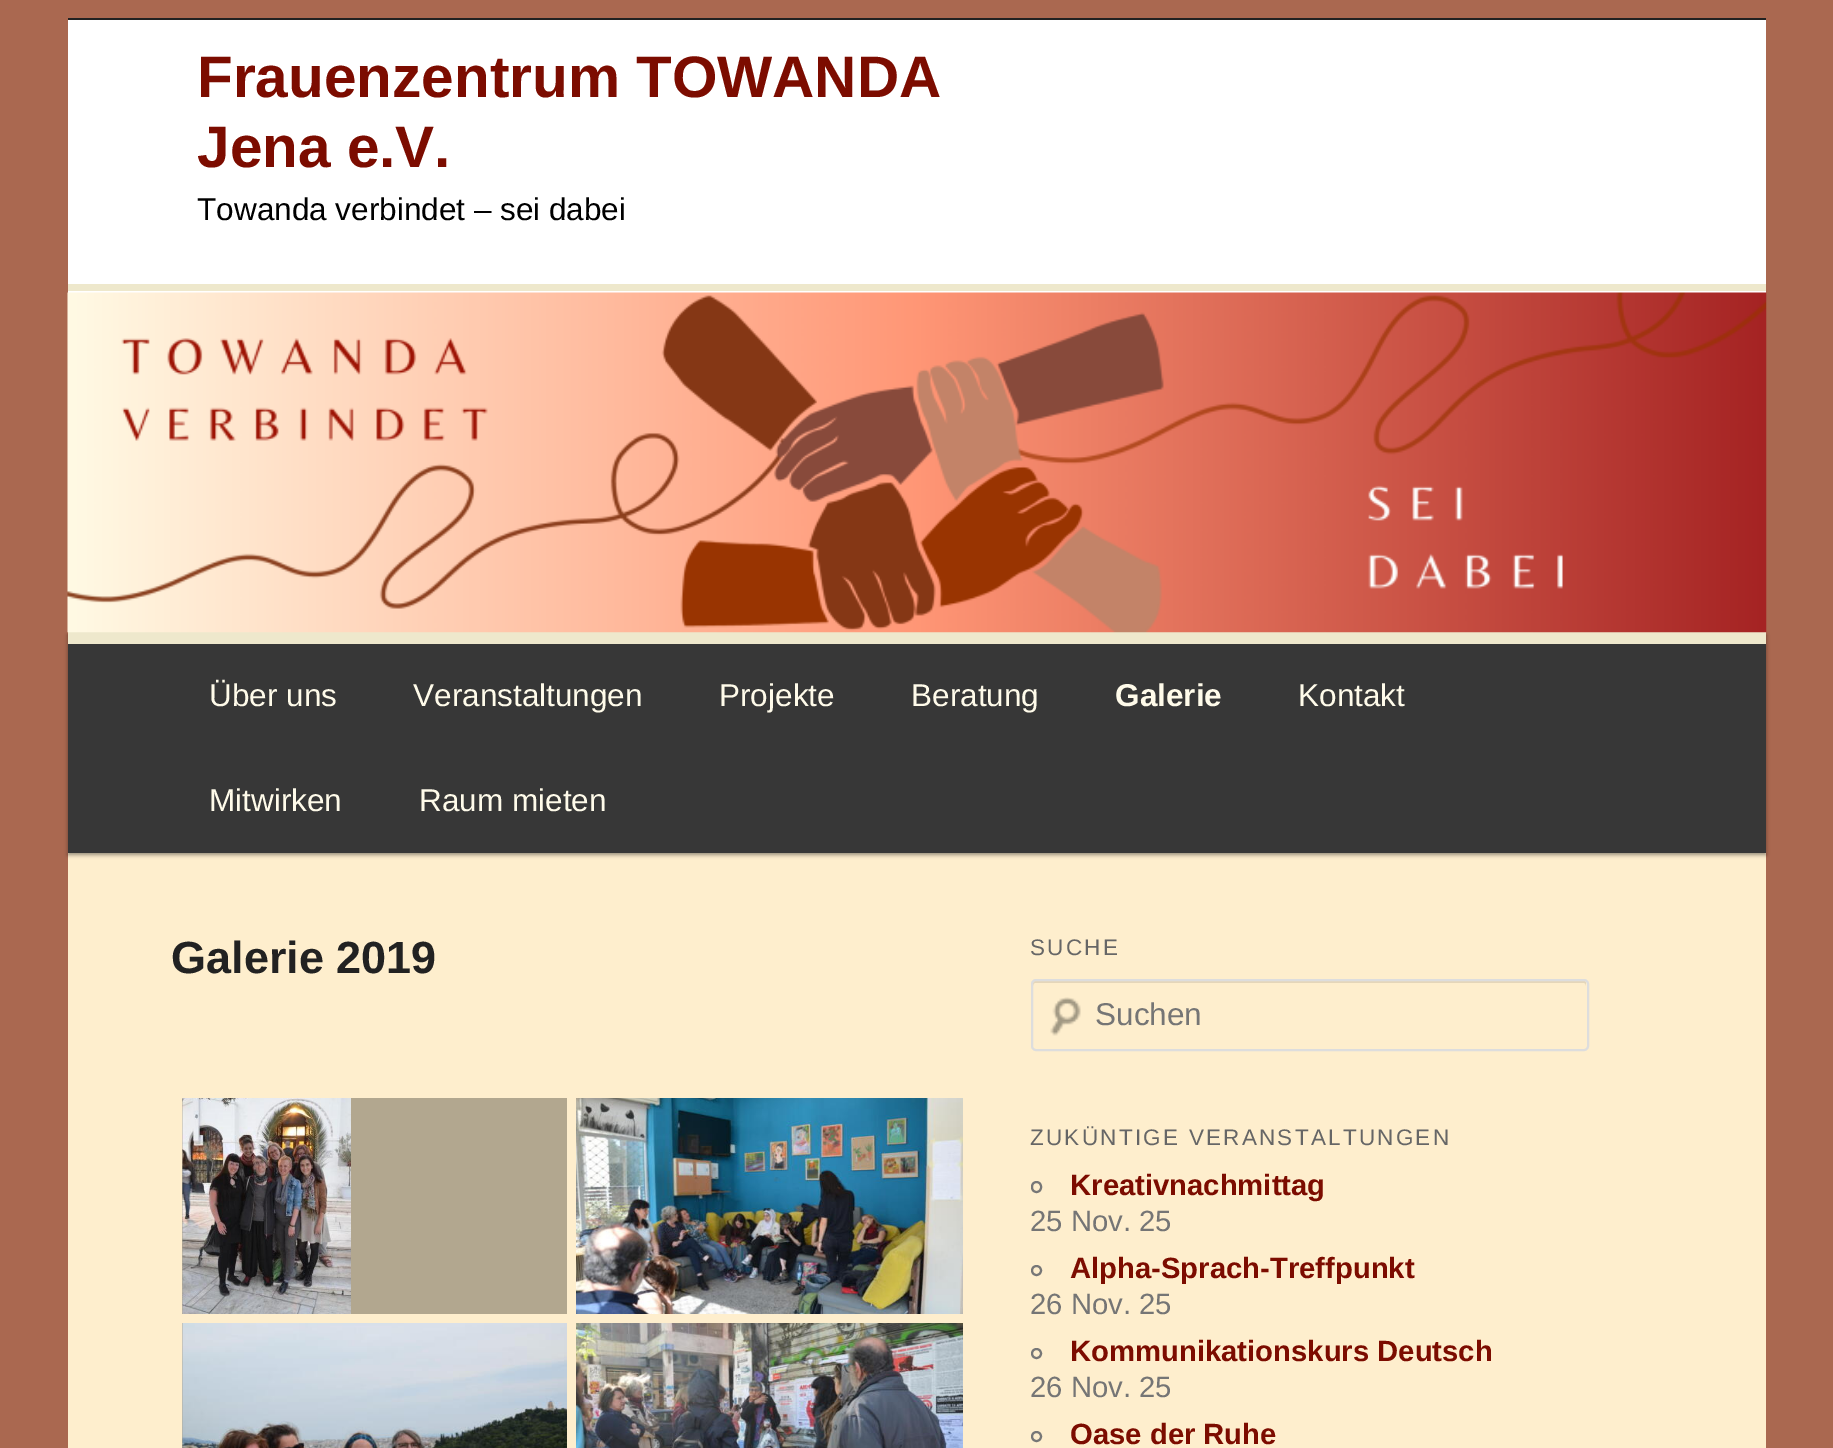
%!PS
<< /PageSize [1833 1448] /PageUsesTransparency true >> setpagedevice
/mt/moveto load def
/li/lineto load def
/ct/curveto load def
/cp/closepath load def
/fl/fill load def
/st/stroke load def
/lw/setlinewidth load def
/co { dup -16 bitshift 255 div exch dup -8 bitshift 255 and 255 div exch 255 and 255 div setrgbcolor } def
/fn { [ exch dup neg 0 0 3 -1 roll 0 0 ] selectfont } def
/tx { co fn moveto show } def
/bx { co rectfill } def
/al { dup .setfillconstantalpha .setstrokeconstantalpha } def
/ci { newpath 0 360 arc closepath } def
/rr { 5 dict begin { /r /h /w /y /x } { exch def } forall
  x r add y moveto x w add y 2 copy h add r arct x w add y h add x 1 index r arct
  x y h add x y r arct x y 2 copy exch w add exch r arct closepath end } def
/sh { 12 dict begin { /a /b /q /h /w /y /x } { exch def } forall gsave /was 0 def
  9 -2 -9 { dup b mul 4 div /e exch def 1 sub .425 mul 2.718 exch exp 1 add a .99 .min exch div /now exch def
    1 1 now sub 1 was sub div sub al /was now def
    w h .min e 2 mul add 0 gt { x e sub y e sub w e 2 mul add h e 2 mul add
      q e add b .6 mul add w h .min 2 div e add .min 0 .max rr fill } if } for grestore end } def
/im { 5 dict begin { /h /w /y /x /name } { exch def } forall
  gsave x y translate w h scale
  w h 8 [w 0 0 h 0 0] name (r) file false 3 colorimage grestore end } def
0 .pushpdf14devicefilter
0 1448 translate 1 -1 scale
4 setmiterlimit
0 0 1833 1448 16#AA6850 bx
68 853 1698 595 16#FEEECD bx
68 20 1698 273 16#FFFFFF bx
68 18 1698 2 16#222222 bx
68 284 1698 7 16#EEE8CC bx
16#000000 co
68 635 1698 220 0 2 .4 sh
68 632 1698 12 16#EEE8CC bx
(media/1.raw) 67 292 1700 341 im
68 644 1698 209 16#373737 bx
182 1098 385 216 16#B2A78F bx
(media/2.raw) 182 1098 169 216 im
(media/3.raw) 576 1098 387 216 im
182 1323 1 125 16#B2A790 bx
(media/4.raw) 182 1323 385 125 im
(media/5.raw) 576 1323 387 125 im
(media/6.raw) 1050 997 31 39 im
16#E5D6B9 co
1035 983 mt 1584 983 li 1585 983 1586 984 1586 986 ct 1586 983 li 1586 982 1585 981 1584 981 ct 1035 981 li 1034 981 1033 982 1033 983 ct 1033 986 li 1033 984 1034 983 1035 983 ct cp fl
16#DDDDDD co
2 lw
1032 980 556 70 4 rr st
16#777777 co
1032 1182 9 10 4.5 rr st
1036.5 1270.5 4.5 ci st
1036.5 1353.5 4.5 ci st
1036.5 1436.5 4.5 ci st
(Frauenzentrum TOWANDA) 197 97 /LiberationSans-Bold 58.5 16#7C0C00 tx
(Jena e.V.) 197 167 /LiberationSans-Bold 58.5 16#7C0C00 tx
(Towanda verbindet – sei dabei) 197 220 /LiberationSans-Regular 31.5 16#000000 tx
(Über uns) 209 706 /LiberationSans-Regular 31.5 16#FFFBEA tx
(Veranstaltungen) 413 706 /LiberationSans-Regular 31.5 16#FFFBEA tx
(Projekte) 719 706 /LiberationSans-Regular 31.5 16#FFFBEA tx
(Beratung) 911 706 /LiberationSans-Regular 31.5 16#FFFBEA tx
(Galerie) 1115 706 /LiberationSans-Bold 31.5 16#FFFBEA tx
(Kontakt) 1298 706 /LiberationSans-Regular 31.5 16#FFFBEA tx
(Mitwirken) 209 811 /LiberationSans-Regular 31.5 16#FFFBEA tx
(Raum mieten) 419 811 /LiberationSans-Regular 31.5 16#FFFBEA tx
(Galerie 2019) 171 973 /LiberationSans-Bold 45 16#222222 tx
/LiberationSans-Regular 22.5 fn
16#666666 co
1030 955 mt 2.25 0 (SUCHE) ashow
(Suchen) 1095 1025 /LiberationSans-Regular 31.5 16#757575 tx
/LiberationSans-Regular 22.5 fn
16#666666 co
1030 1145 mt 2.25 0 (ZUKÜNTIGE VERANSTALTUNGEN) ashow
(Kreativnachmittag) 1070 1195 /LiberationSans-Bold 29.25 16#7C0C00 tx
(25 Nov. 25) 1030 1231 /LiberationSans-Regular 29.25 16#757575 tx
(Alpha-Sprach-Treffpunkt) 1070 1278 /LiberationSans-Bold 29.25 16#7C0C00 tx
(26 Nov. 25) 1030 1314 /LiberationSans-Regular 29.25 16#757575 tx
(Kommunikationskurs Deutsch) 1070 1361 /LiberationSans-Bold 29.25 16#7C0C00 tx
(26 Nov. 25) 1030 1397 /LiberationSans-Regular 29.25 16#757575 tx
(Oase der Ruhe) 1070 1444 /LiberationSans-Bold 29.25 16#7C0C00 tx
.poppdf14devicefilter showpage
